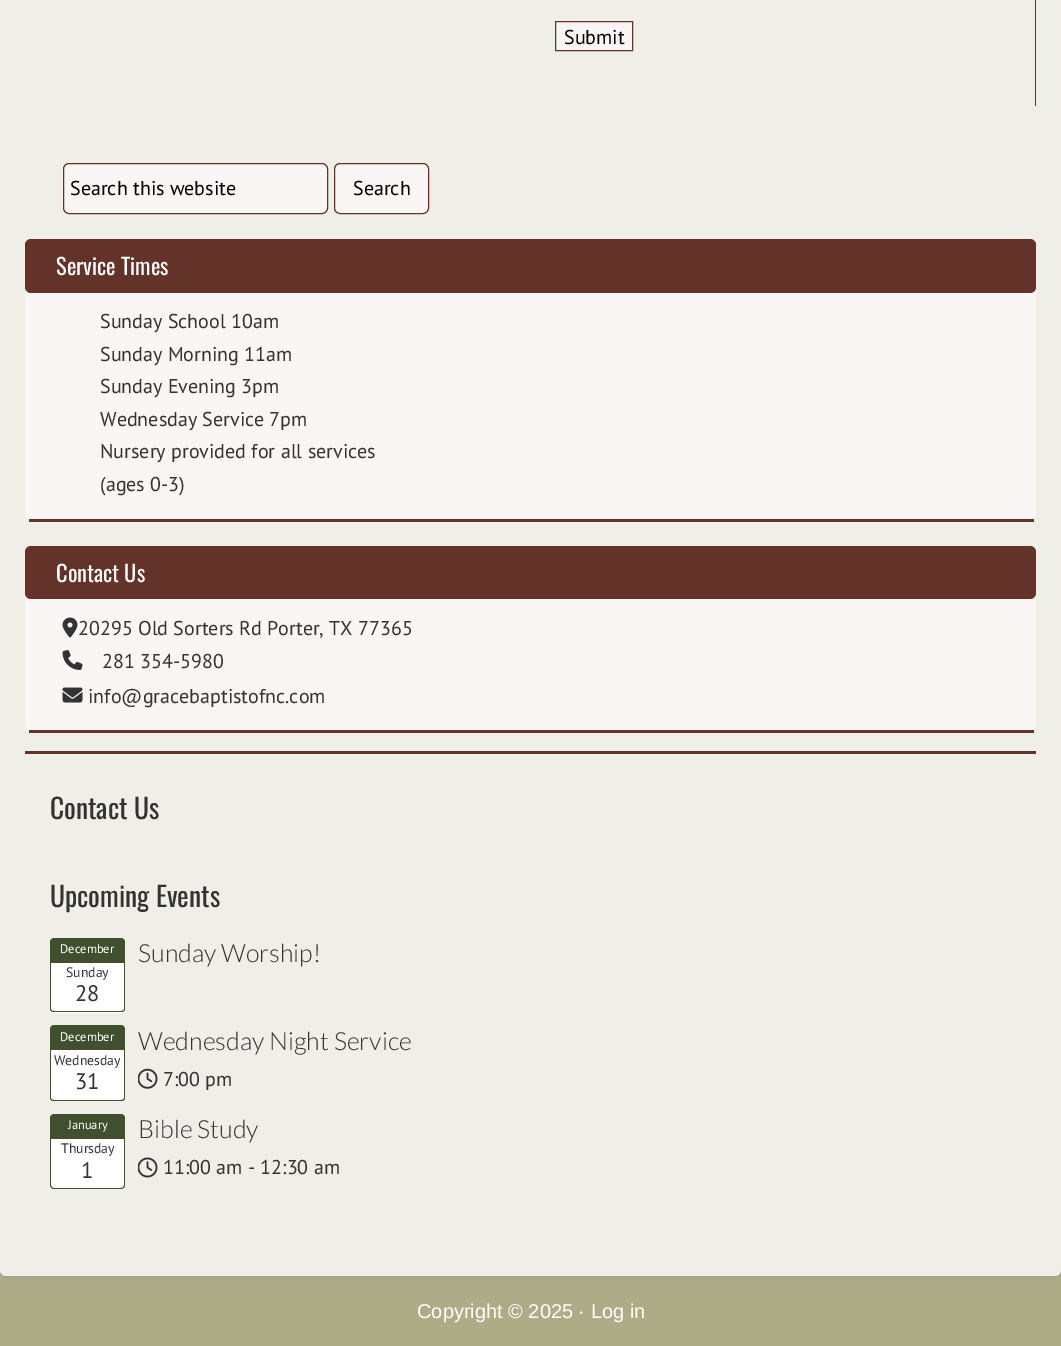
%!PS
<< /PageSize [1061 1346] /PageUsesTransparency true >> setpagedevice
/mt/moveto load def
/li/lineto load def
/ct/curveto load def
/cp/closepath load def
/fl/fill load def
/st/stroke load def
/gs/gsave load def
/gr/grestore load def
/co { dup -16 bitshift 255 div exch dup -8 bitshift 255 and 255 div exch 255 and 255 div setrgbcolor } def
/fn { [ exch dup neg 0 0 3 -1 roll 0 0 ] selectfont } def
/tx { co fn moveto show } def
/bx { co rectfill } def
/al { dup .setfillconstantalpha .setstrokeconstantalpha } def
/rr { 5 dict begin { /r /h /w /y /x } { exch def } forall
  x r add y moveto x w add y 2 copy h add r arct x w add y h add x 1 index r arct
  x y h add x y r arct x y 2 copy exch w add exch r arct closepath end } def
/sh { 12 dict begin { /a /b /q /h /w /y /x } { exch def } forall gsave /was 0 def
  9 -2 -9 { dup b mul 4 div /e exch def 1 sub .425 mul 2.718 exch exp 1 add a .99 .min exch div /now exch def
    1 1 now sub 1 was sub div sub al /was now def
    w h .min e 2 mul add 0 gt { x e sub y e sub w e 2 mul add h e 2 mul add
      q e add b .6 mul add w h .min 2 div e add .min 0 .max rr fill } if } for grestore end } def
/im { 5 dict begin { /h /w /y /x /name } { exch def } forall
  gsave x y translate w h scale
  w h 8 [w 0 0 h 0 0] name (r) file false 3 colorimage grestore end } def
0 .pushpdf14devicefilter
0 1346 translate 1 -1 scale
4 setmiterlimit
0 0 1061 1346 16#ADAC87 bx
16#999999 co
0 -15 1061 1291 6 3 1 sh
16#EFEEE7 co
0 -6 1061 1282 6 rr fl
1035 0 1 106 16#633229 bx
16#FBF6F6 co
555.5 21.5 mt 632.5 21.5 li 632.5 50.5 li 555.5 50.5 li cp gs fl gr
16#633229 co
st
16#FBF6F6 co
63.5 163.5 264 50 5.5 rr gs fl gr
16#633229 co
st
16#FBF6F6 co
334.5 163.5 94 50 5.5 rr gs fl gr
16#633229 co
st
16#FBF6F6 co
31 239 mt 1030 239 li 1033 239 1036 242 1036 245 ct 1036 515 li 1036 517 1033 519 1030 519 ct 31 519 li 28 519 25 517 25 515 ct 25 245 li 25 242 28 239 31 239 ct cp fl
29 519 1005 3 16#633229 bx
25 239 1011 54 6 rr fl
16#FBF6F6 co
31 546 mt 1030 546 li 1033 546 1036 549 1036 552 ct 1036 726 li 1036 728 1033 730 1030 730 ct 31 730 li 28 730 25 728 25 726 ct 25 552 li 25 549 28 546 31 546 ct cp fl
29 730 1005 3 16#633229 bx
25 546 1011 53 6 rr fl
(media/1.raw) 62 617 16 21 im
(media/2.raw) 62 650 21 20 im
(media/3.raw) 62 687 21 16 im
25 751 1011 3 16#633229 bx
16#404F2E co
54 938 mt 121 938 li 123 938 125 940 125 942 ct 125 963 li 50 963 li 50 942 li 50 940 52 938 54 938 ct cp fl
124 940 1 2 16#404F2E bx
50 940 1 2 16#404F2E bx
51 963 73 20 16#FFFFFF bx
124 963 1 20 16#404F2E bx
50 963 1 20 16#404F2E bx
16#FFFFFF co
50 983 mt 125 983 li 125 1009 li 125 1011 123 1013 121 1013 ct 54 1013 li 52 1013 50 1011 50 1009 ct cp fl
16#404F2E co
50 982 mt 125 982 li 125 1009 li 125 1011 123 1012 121 1012 ct 54 1012 li 52 1012 50 1011 50 1009 ct cp 51 982 mt 124 982 li 124 1009 li 124 1010 123 1011 121 1011 ct 54 1011 li 52 1011 51 1010 51 1009 ct cp eofill
54 1025 mt 121 1025 li 123 1025 125 1027 125 1029 ct 125 1050 li 50 1050 li 50 1029 li 50 1027 52 1025 54 1025 ct cp fl
124 1028 1 1 16#404F2E bx
50 1028 1 1 16#404F2E bx
51 1050 73 21 16#FFFFFF bx
124 1050 1 21 16#404F2E bx
50 1050 1 21 16#404F2E bx
16#FFFFFF co
50 1071 mt 125 1071 li 125 1097 li 125 1099 123 1101 121 1101 ct 54 1101 li 52 1101 50 1099 50 1097 ct cp fl
16#404F2E co
50 1071 mt 125 1071 li 125 1098 li 125 1100 123 1101 121 1101 ct 54 1101 li 52 1101 50 1100 50 1098 ct cp 51 1071 mt 124 1071 li 124 1098 li 124 1099 123 1100 121 1100 ct 54 1100 li 52 1100 51 1099 51 1098 ct cp eofill
(media/4.raw) 138 1068 20 21 im
54 1114 mt 121 1114 li 123 1114 125 1116 125 1118 ct 125 1139 li 50 1139 li 50 1118 li 50 1116 52 1114 54 1114 ct cp fl
124 1116 1 2 16#404F2E bx
50 1116 1 2 16#404F2E bx
51 1139 73 20 16#FFFFFF bx
124 1139 1 20 16#404F2E bx
50 1139 1 20 16#404F2E bx
16#FFFFFF co
50 1159 mt 125 1159 li 125 1185 li 125 1187 123 1189 121 1189 ct 54 1189 li 52 1189 50 1187 50 1185 ct cp fl
16#404F2E co
50 1159 mt 125 1159 li 125 1185 li 125 1187 123 1189 121 1189 ct 54 1189 li 52 1189 50 1187 50 1185 ct cp 51 1159 mt 124 1159 li 124 1185 li 124 1186 123 1188 121 1188 ct 54 1188 li 52 1188 51 1186 51 1185 ct cp eofill
(media/5.raw) 138 1157 20 21 im
(Submit) 564 44 /PTSans-Regular 20 16#000000 tx
(Search this website) 70 195 /PTSans-Regular 20 16#000000 tx
(Search) 353 195 /PTSans-Regular 20 16#000000 tx
(Service Times) 56 275 /Oswald-Regular 22.5 16#FFFFFF tx
(Sunday School 10am) 100 328 /PTSans-Regular 20 16#333333 tx
(Sunday Morning 11am) 100 361 /PTSans-Regular 20 16#333333 tx
(Sunday Evening 3pm) 100 393 /PTSans-Regular 20 16#333333 tx
(Wednesday Service 7pm) 100 426 /PTSans-Regular 20 16#333333 tx
(Nursery provided for all services) 100 458 /PTSans-Regular 20 16#333333 tx
(\(ages 0-3\)) 100 491 /PTSans-Regular 20 16#333333 tx
(Contact Us) 56 582 /Oswald-Regular 22.5 16#FFFFFF tx
(20295 Old Sorters Rd Porter, TX 77365) 78 635 /PTSans-Regular 20 16#333333 tx
(281 354-5980) 102 668 /PTSans-Regular 20 16#333333 tx
(info@gracebaptistofnc.com) 88 703 /PTSans-Regular 20 16#333333 tx
(Contact Us) 50 819 /Oswald-Regular 27.5 16#333333 tx
(Upcoming Events) 50 907 /Oswald-Regular 27.5 16#333333 tx
(December) 60 953 /PTSans-Regular 12.5 16#FFFFFF tx
(Sunday) 66 977 /PTSans-Regular 13.75 16#333333 tx
(28) 75 1001 /PTSans-Regular 22.5 16#333333 tx
(Sunday Worship!) 138 962 /Lato-Light 25 16#333333 tx
(December) 60 1041 /PTSans-Regular 12.5 16#FFFFFF tx
(Wednesday) 54 1065 /PTSans-Regular 13.75 16#333333 tx
(31) 75 1089 /PTSans-Regular 22.5 16#333333 tx
(Wednesday Night Service) 138 1050 /Lato-Light 25 16#333333 tx
(7:00 pm) 163 1086 /PTSans-Regular 20 16#333333 tx
(January) 68 1129 /PTSans-Regular 12.5 16#FFFFFF tx
(Thursday) 61 1153 /PTSans-Regular 13.75 16#333333 tx
(1) 81 1178 /PTSans-Regular 22.5 16#333333 tx
(Bible Study) 138 1138 /Lato-Light 25 16#333333 tx
(11:00 am - 12:30 am) 163 1174 /PTSans-Regular 20 16#333333 tx
(Copyright © 2025 · Log in) 417 1318 /LiberationSans-Regular 20 16#FFFFFF tx
.poppdf14devicefilter showpage
